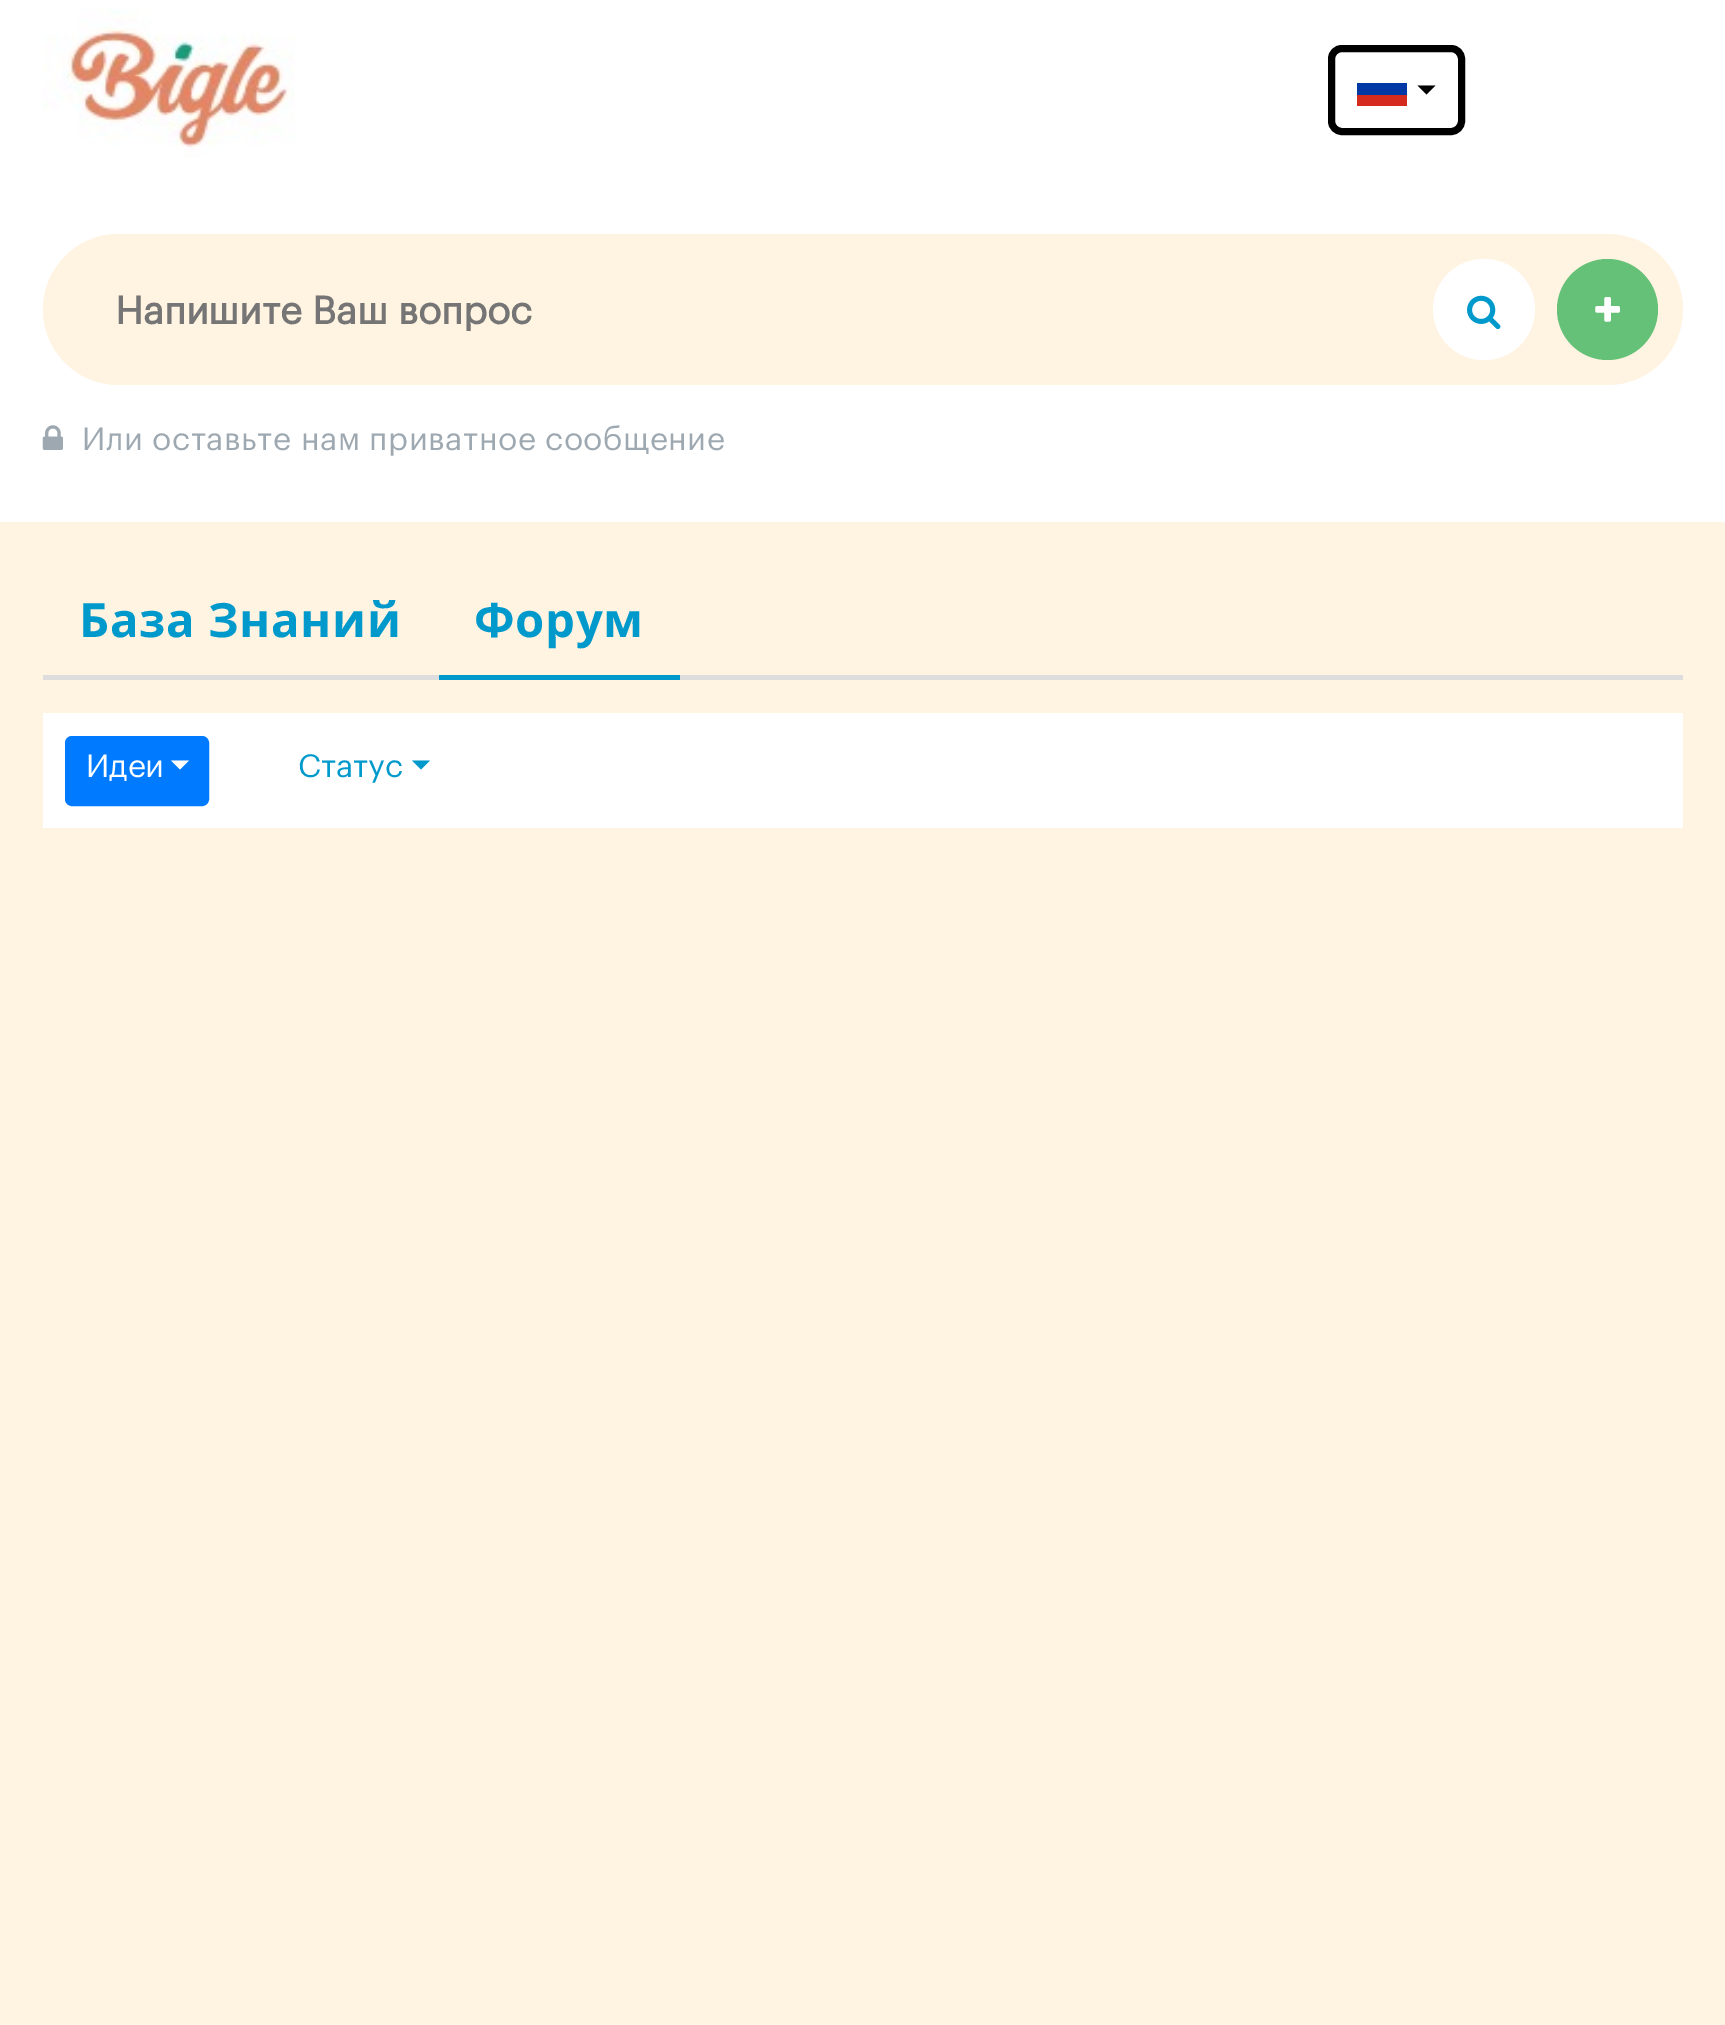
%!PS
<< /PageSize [1725 2025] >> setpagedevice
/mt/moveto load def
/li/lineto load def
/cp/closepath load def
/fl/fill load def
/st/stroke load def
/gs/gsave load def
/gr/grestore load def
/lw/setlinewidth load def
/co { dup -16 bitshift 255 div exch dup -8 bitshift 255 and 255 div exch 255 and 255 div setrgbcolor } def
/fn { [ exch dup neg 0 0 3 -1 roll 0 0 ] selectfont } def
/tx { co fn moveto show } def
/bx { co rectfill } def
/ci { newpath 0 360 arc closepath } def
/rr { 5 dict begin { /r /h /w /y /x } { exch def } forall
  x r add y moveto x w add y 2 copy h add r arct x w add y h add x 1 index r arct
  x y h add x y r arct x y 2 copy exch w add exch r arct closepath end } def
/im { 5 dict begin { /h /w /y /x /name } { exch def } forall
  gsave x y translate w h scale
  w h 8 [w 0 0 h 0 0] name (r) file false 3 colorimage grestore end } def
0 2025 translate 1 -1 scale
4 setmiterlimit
0 0 1725 2025 16#FFF3E1 bx
0 0 1725 522 16#FFFFFF bx
(media/1.raw) 43 8 252 149 im
16#000000 co
7 lw
1331.5 48.5 130 83 10.5 rr st
1357 95 50 11 16#D52B1E bx
1357 83 50 12 16#0039A6 bx
16#000000 co
1417.5 85.5 mt 1435.5 85.5 li 1426.5 94.5 li cp fl
16#FFF3E1 co
43 234 1640 151 75.5 rr fl
16#FFFFFF co
1433 259 102 101 50.5 rr fl
(media/2.raw) 1467 295 34 35 im
16#65C178 co
1607.5 309.5 50.5 ci fl
(media/3.raw) 1595 297 25 25 im
(media/4.raw) 42 425 21 25 im
43 675 1640 5 16#DDDDDD bx
439 675 241 5 16#0099CC bx
43 713 1640 115 16#FFFFFF bx
16#007BFF co
66 737 142 68 6 rr gs fl gr
2 lw
st
16#FFFFFF co
171 760.5 mt 189 760.5 li 180 769.5 li cp fl
16#0099CC co
412 760.5 mt 430 760.5 li 421 769.5 li cp fl
(Напишите Ваш вопрос) 115 324 /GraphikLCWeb-Bold 38.25 16#757575 tx
/GraphikLCWeb-Regular 31.5 fn
16#9DA8B0 co
82 450 mt .65 0 (Или оставьте нам приватное сообщение) ashow
/OpenSans-Bold 47.25 fn
16#0099CC co
79 637 mt .65 0 (База Знаний) ashow
474 637 mt .65 0 (Форум) ashow
(Идеи) 86 777 /GraphikLCWeb-Regular 31.5 16#FFFFFF tx
(Статус) 298 777 /GraphikLCWeb-Regular 31.5 16#0099CC tx
showpage
